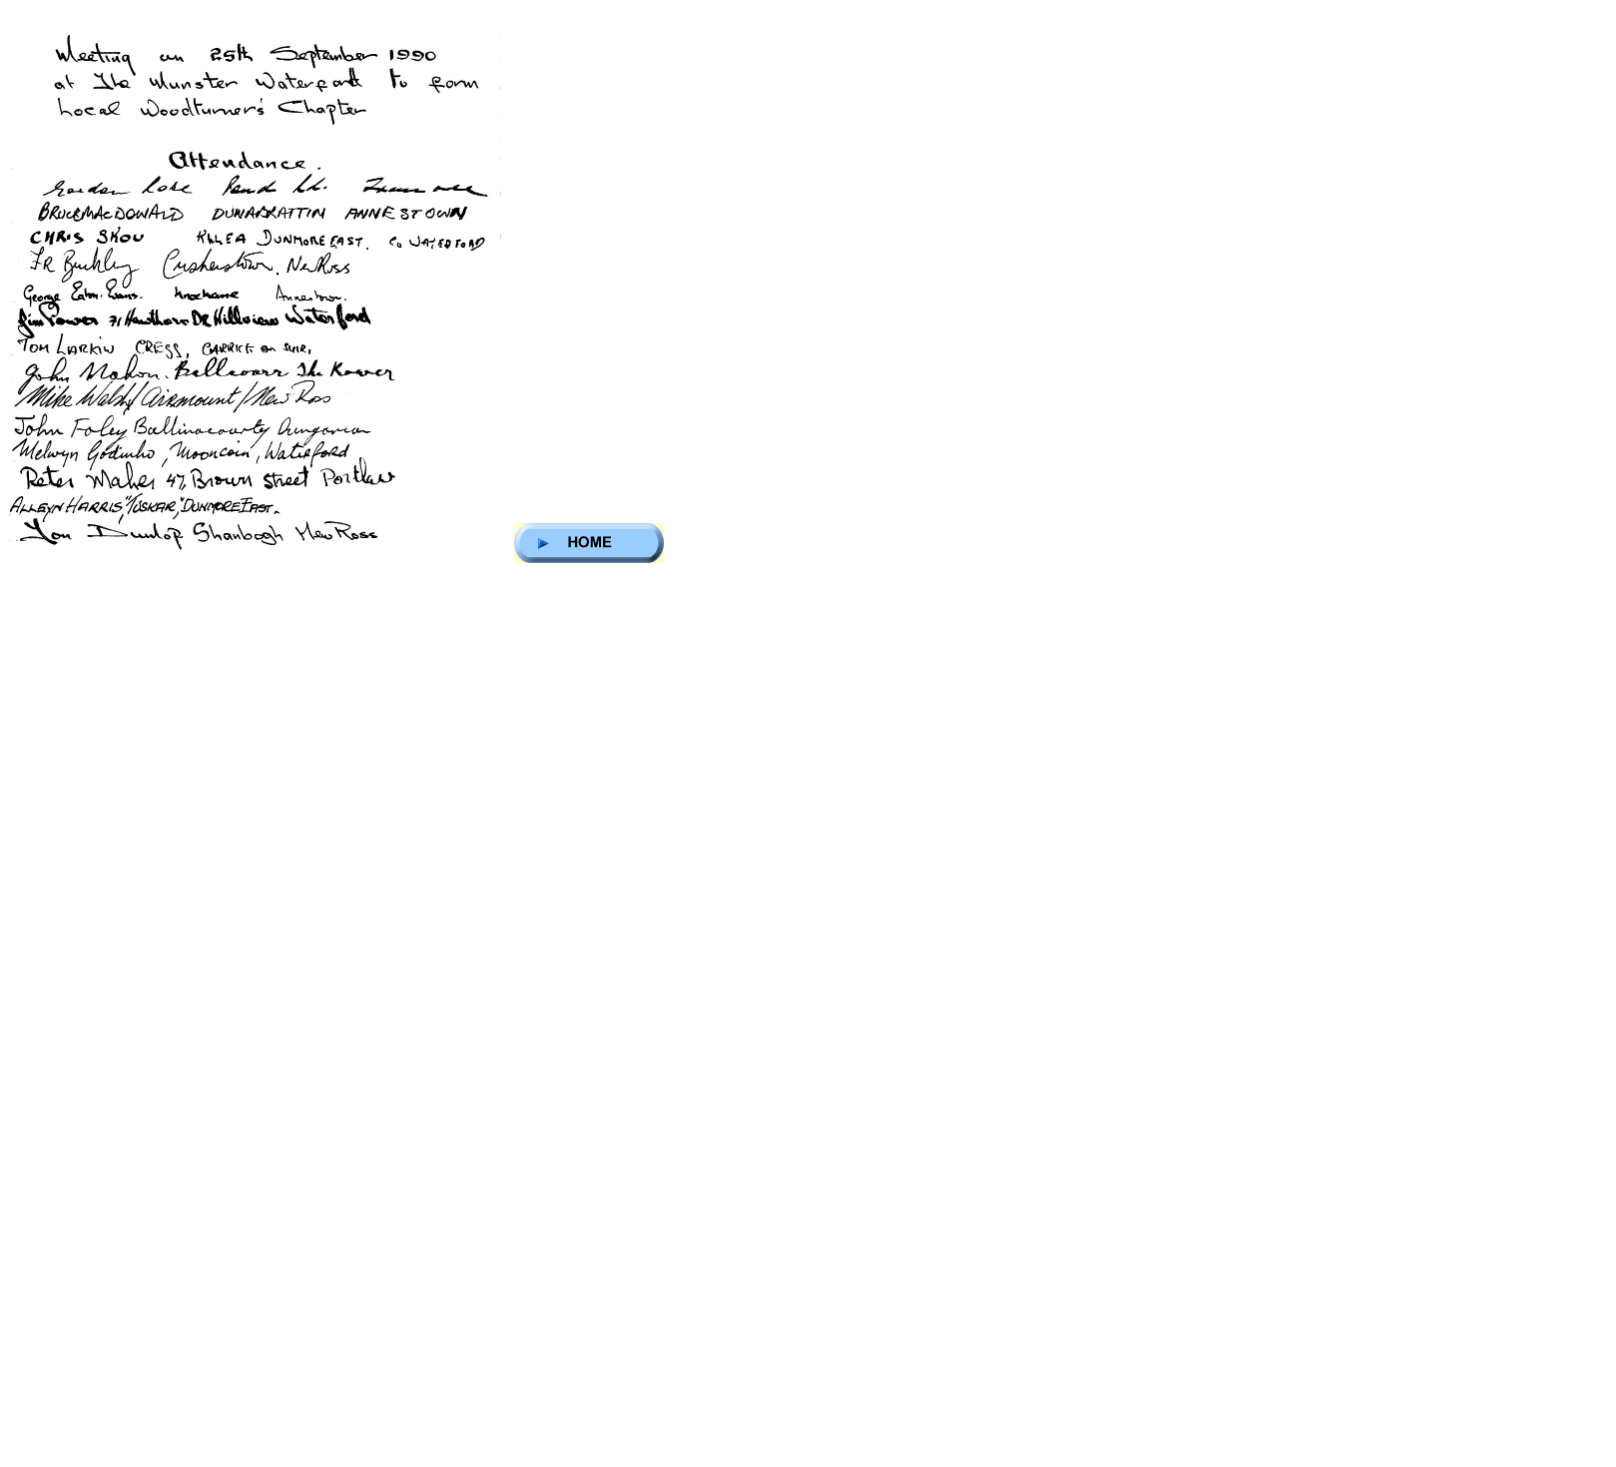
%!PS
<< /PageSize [1616 1467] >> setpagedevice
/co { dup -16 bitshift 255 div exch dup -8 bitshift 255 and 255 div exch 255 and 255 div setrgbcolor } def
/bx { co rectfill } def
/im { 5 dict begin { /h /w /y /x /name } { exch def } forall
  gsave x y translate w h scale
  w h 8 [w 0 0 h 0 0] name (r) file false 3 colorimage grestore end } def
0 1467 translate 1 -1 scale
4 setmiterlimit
0 0 1616 1467 16#FFFFFF bx
(media/1.raw) 8 34 494 517 im
(media/2.raw) 514 523 150 40 im
showpage
